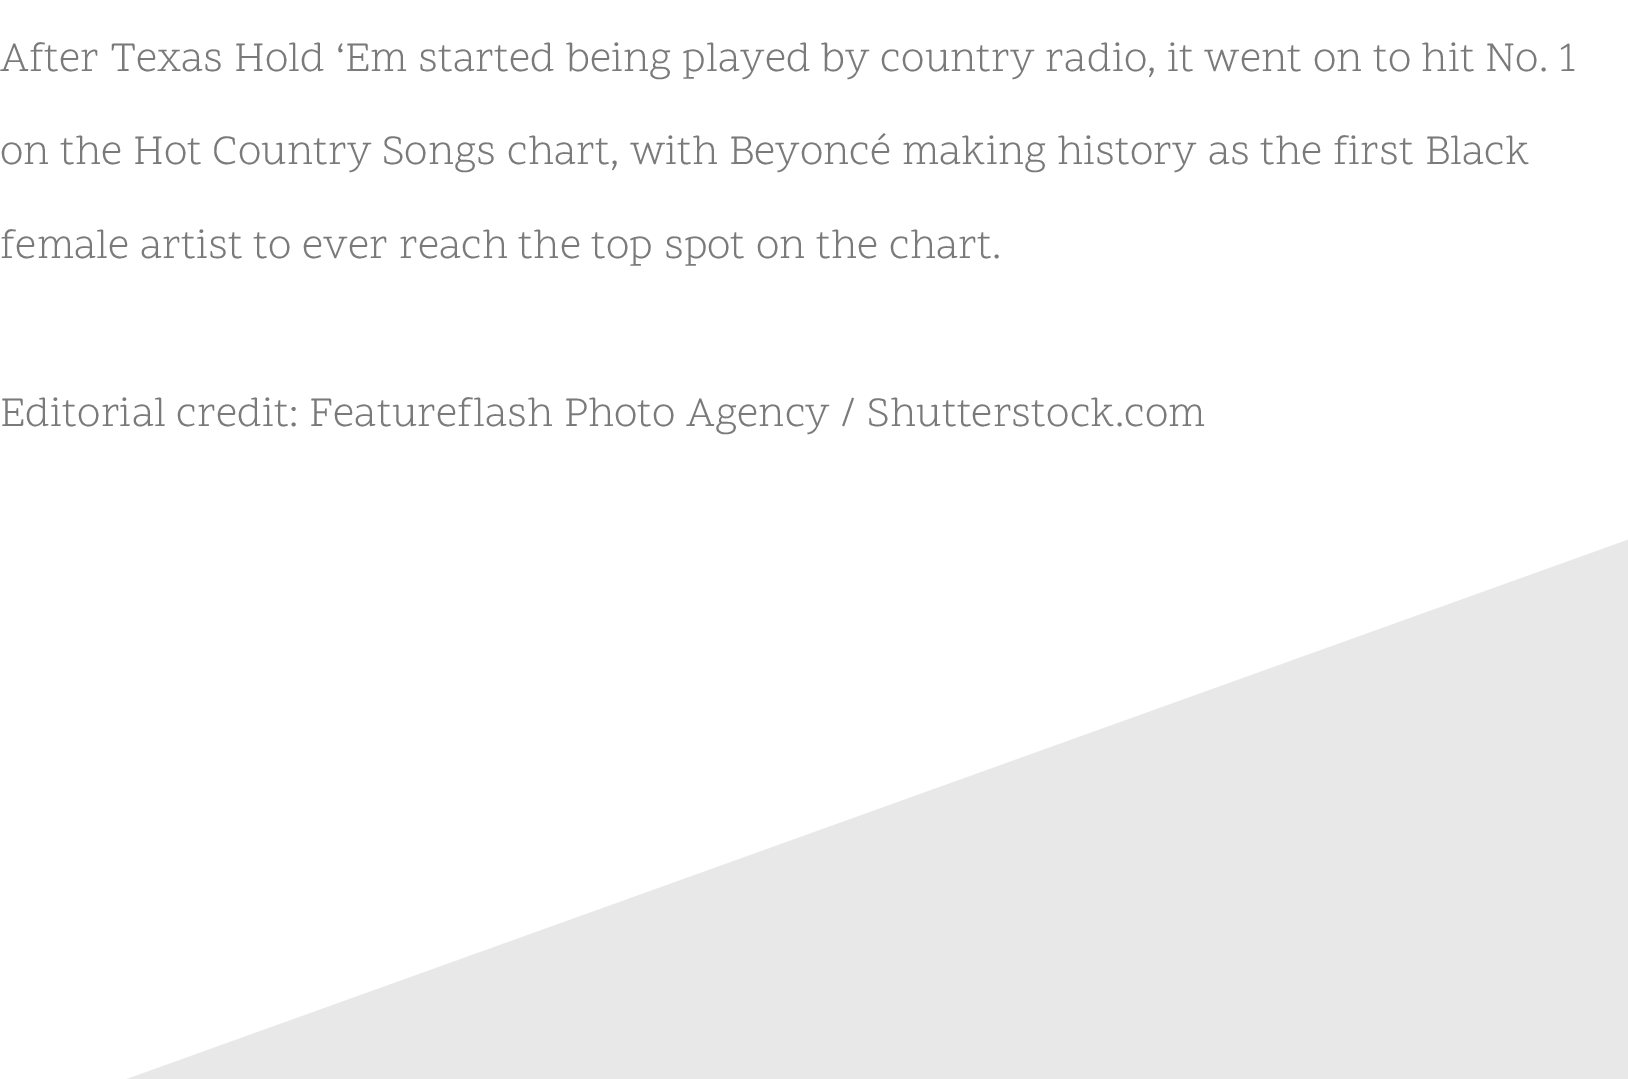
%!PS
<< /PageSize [1628 1079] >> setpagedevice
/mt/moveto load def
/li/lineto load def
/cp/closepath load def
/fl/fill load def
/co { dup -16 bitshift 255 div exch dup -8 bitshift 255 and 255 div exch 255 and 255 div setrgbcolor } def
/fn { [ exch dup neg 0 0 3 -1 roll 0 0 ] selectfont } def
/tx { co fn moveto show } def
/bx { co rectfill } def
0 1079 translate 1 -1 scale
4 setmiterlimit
0 0 1628 1079 16#FFFFFF bx
126 539 1502 540 16#E8E8E8 bx
16#FFFFFF co
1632 538 mt 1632 500 li -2 500 li -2 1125 li cp fl
(After Texas Hold ‘Em started being played by country radio, it went on to hit No. 1) 0 71 /ScopeOne-Regular 42.5 16#7A7A7A tx
(on the Hot Country Songs chart, with Beyoncé making history as the first Black) 0 164 /ScopeOne-Regular 42.5 16#7A7A7A tx
(female artist to ever reach the top spot on the chart.) 0 258 /ScopeOne-Regular 42.5 16#7A7A7A tx
(Editorial credit: Featureflash Photo Agency / Shutterstock.com) 0 426 /ScopeOne-Regular 42.5 16#7A7A7A tx
showpage
